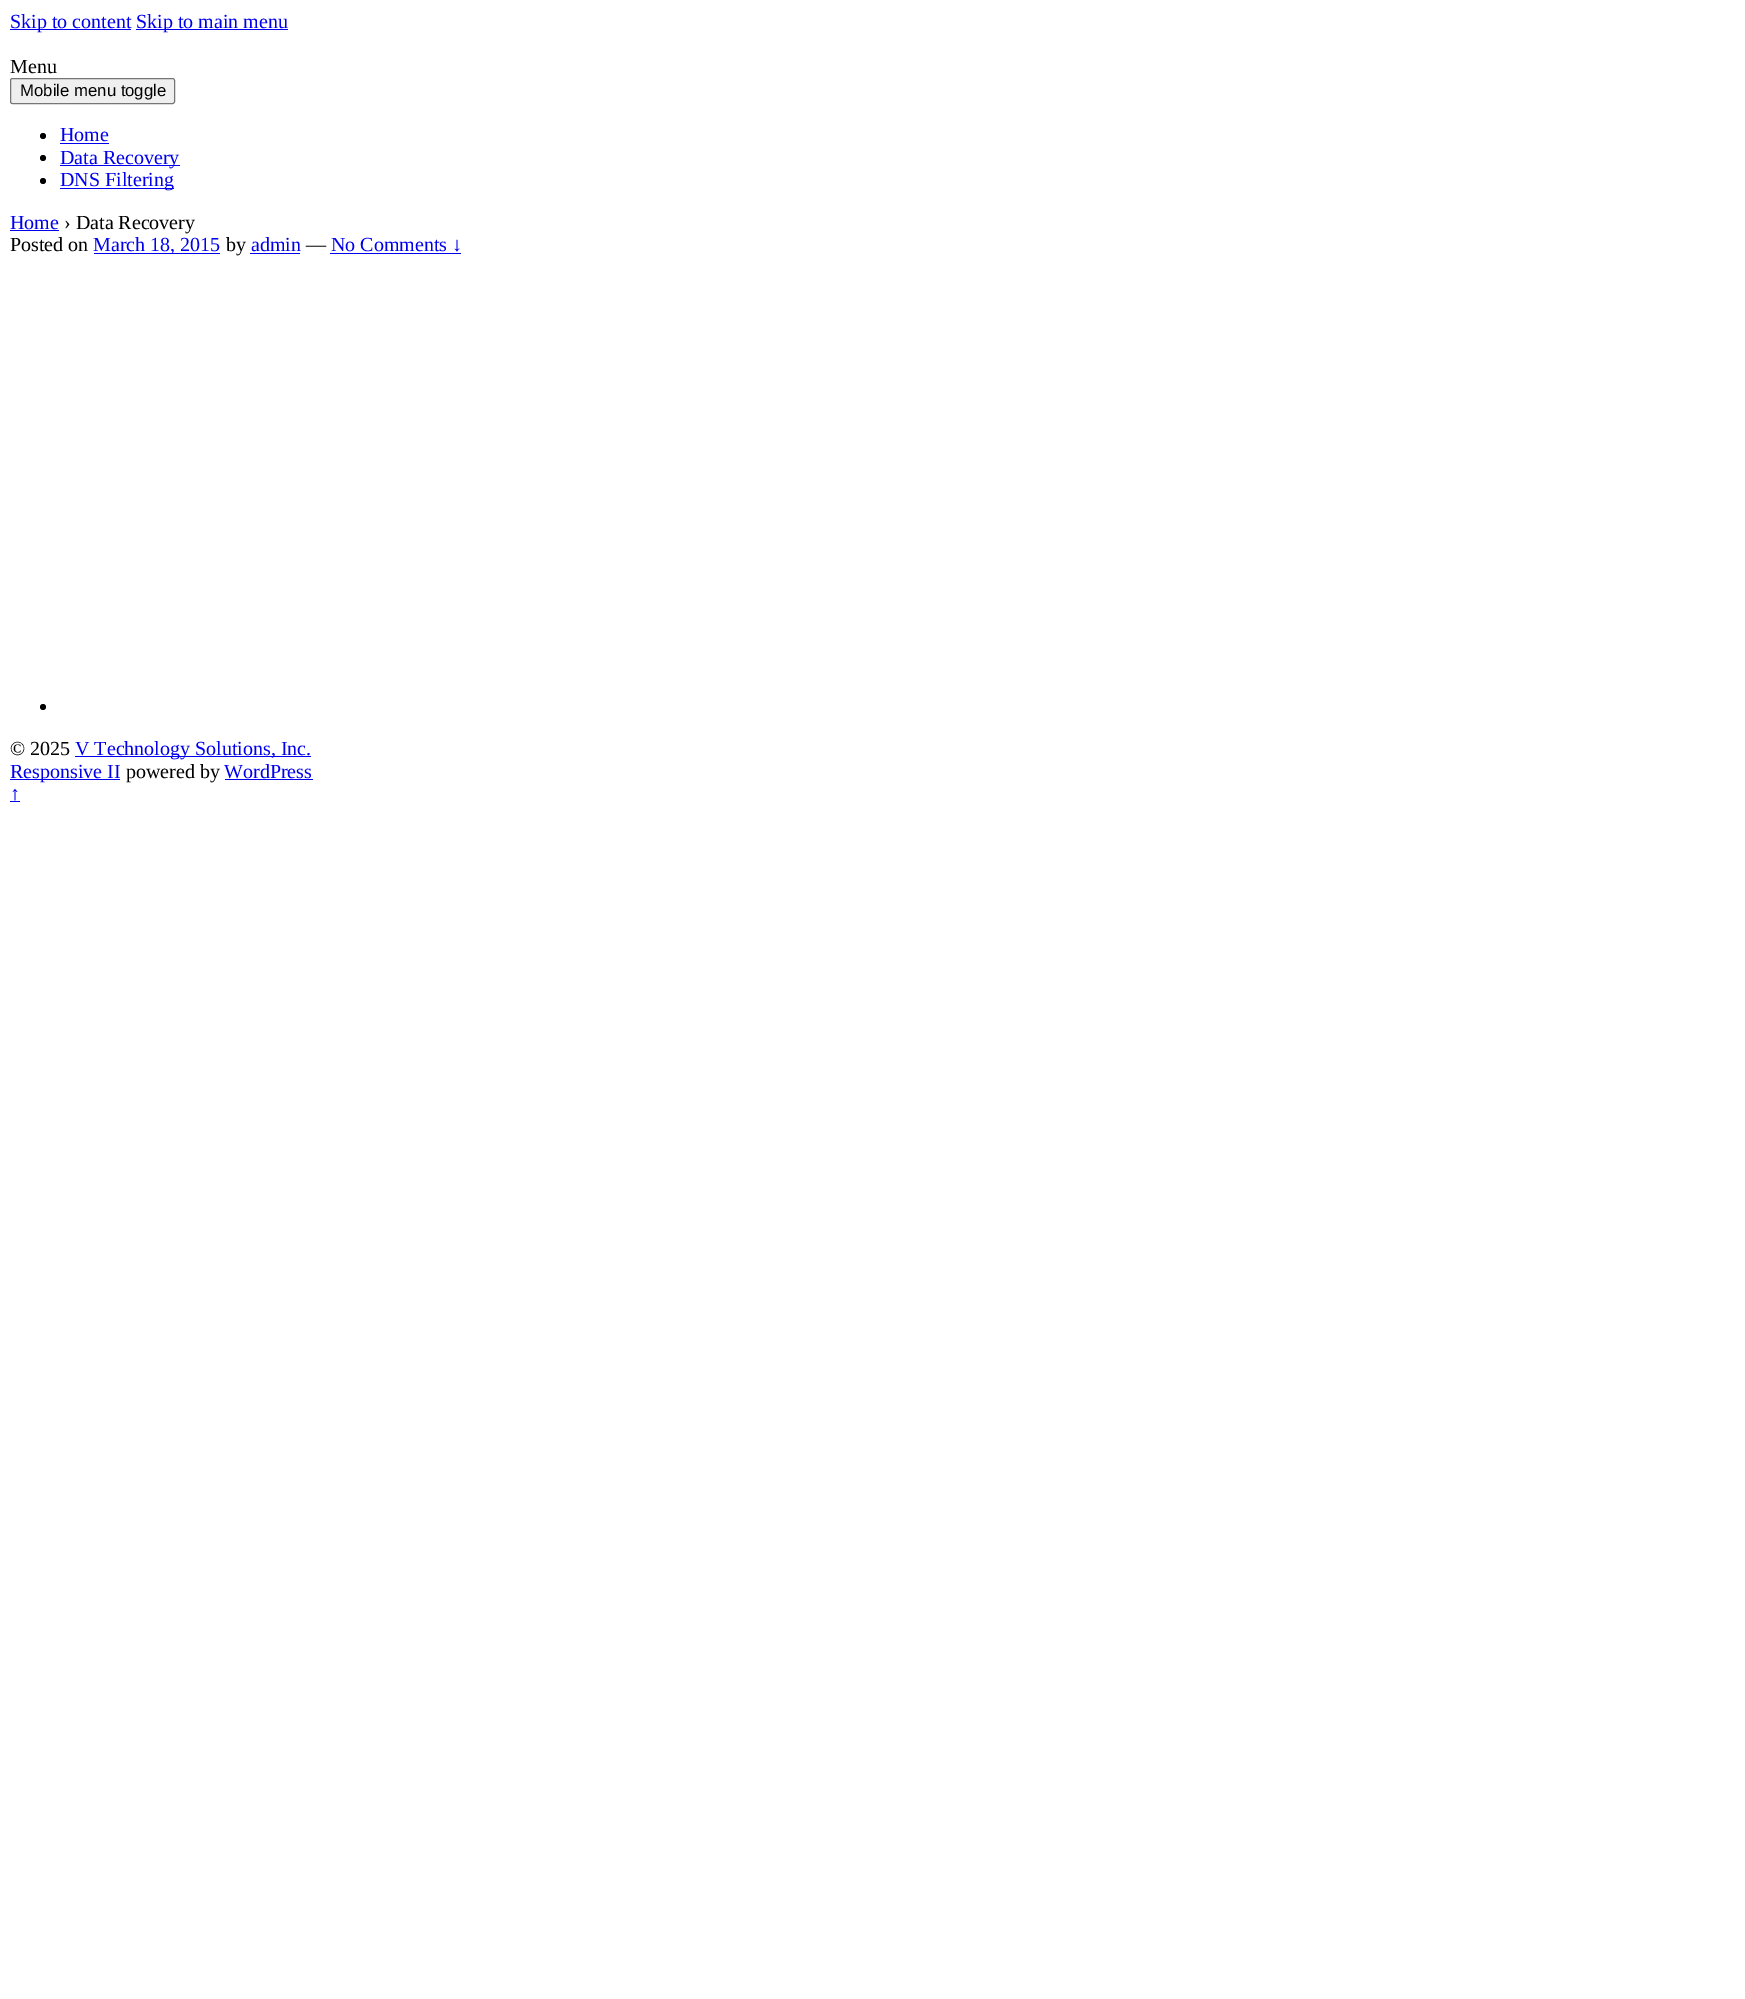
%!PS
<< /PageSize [1745 1999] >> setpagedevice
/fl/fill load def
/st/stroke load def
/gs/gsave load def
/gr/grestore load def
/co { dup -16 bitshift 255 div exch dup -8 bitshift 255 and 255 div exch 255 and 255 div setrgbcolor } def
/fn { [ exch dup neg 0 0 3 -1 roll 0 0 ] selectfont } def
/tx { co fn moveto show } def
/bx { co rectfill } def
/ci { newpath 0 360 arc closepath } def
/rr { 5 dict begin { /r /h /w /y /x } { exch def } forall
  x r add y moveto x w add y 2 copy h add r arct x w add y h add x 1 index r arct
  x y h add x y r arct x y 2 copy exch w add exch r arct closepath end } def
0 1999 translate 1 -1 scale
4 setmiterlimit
0 0 1745 1999 16#FFFFFF bx
10 29 121 1 16#0000EE bx
136 29 152 1 16#0000EE bx
16#EFEFEF co
10.5 78.5 164 25 2 rr gs fl gr
16#767676 co
st
16#000000 co
43 136 3 ci fl
60 143 49 1 16#0000EE bx
16#000000 co
43 158 3 ci fl
60 165 120 1 16#0000EE bx
16#000000 co
43 181 3 ci fl
60 188 114 1 16#0000EE bx
10 230 49 1 16#0000EE bx
94 253 126 1 16#0000EE bx
250 253 50 1 16#0000EE bx
330 253 131 1 16#0000EE bx
16#000000 co
43 707 3 ci fl
75 756 236 1 16#0000EE bx
10 779 110 1 16#0000EE bx
225 779 88 1 16#0000EE bx
10 801 10 1 16#0000EE bx
(Skip to content) 10 28 /LiberationSerif-Regular 20 16#0000EE tx
(Skip to main menu) 136 28 /LiberationSerif-Regular 20 16#0000EE tx
(Menu) 10 73 /LiberationSerif-Regular 20 16#000000 tx
(Mobile menu toggle) 20 96 /LiberationSans-Regular 16.75 16#000000 tx
(Home) 60 141 /LiberationSerif-Regular 20 16#0000EE tx
(Data Recovery) 60 164 /LiberationSerif-Regular 20 16#0000EE tx
(DNS Filtering) 60 186 /LiberationSerif-Regular 20 16#0000EE tx
(Home) 10 229 /LiberationSerif-Regular 20 16#0000EE tx
(› Data Recovery) 64 229 /LiberationSerif-Regular 20 16#000000 tx
(Posted on) 10 251 /LiberationSerif-Regular 20 16#000000 tx
(March 18, 2015) 93 251 /LiberationSerif-Regular 20 16#0000EE tx
(by) 226 251 /LiberationSerif-Regular 20 16#000000 tx
(admin) 251 251 /LiberationSerif-Regular 20 16#0000EE tx
(—) 306 251 /LiberationSerif-Regular 20 16#000000 tx
(No Comments ↓) 331 251 /LiberationSerif-Regular 20 16#0000EE tx
(© 2025) 10 755 /LiberationSerif-Regular 20 16#000000 tx
(V Technology Solutions, Inc.) 75 755 /LiberationSerif-Regular 20 16#0000EE tx
(Responsive II) 10 778 /LiberationSerif-Regular 20 16#0000EE tx
(powered by) 126 778 /LiberationSerif-Regular 20 16#000000 tx
(WordPress) 224 778 /LiberationSerif-Regular 20 16#0000EE tx
(↑) 10 800 /LiberationSerif-Regular 20 16#0000EE tx
showpage
